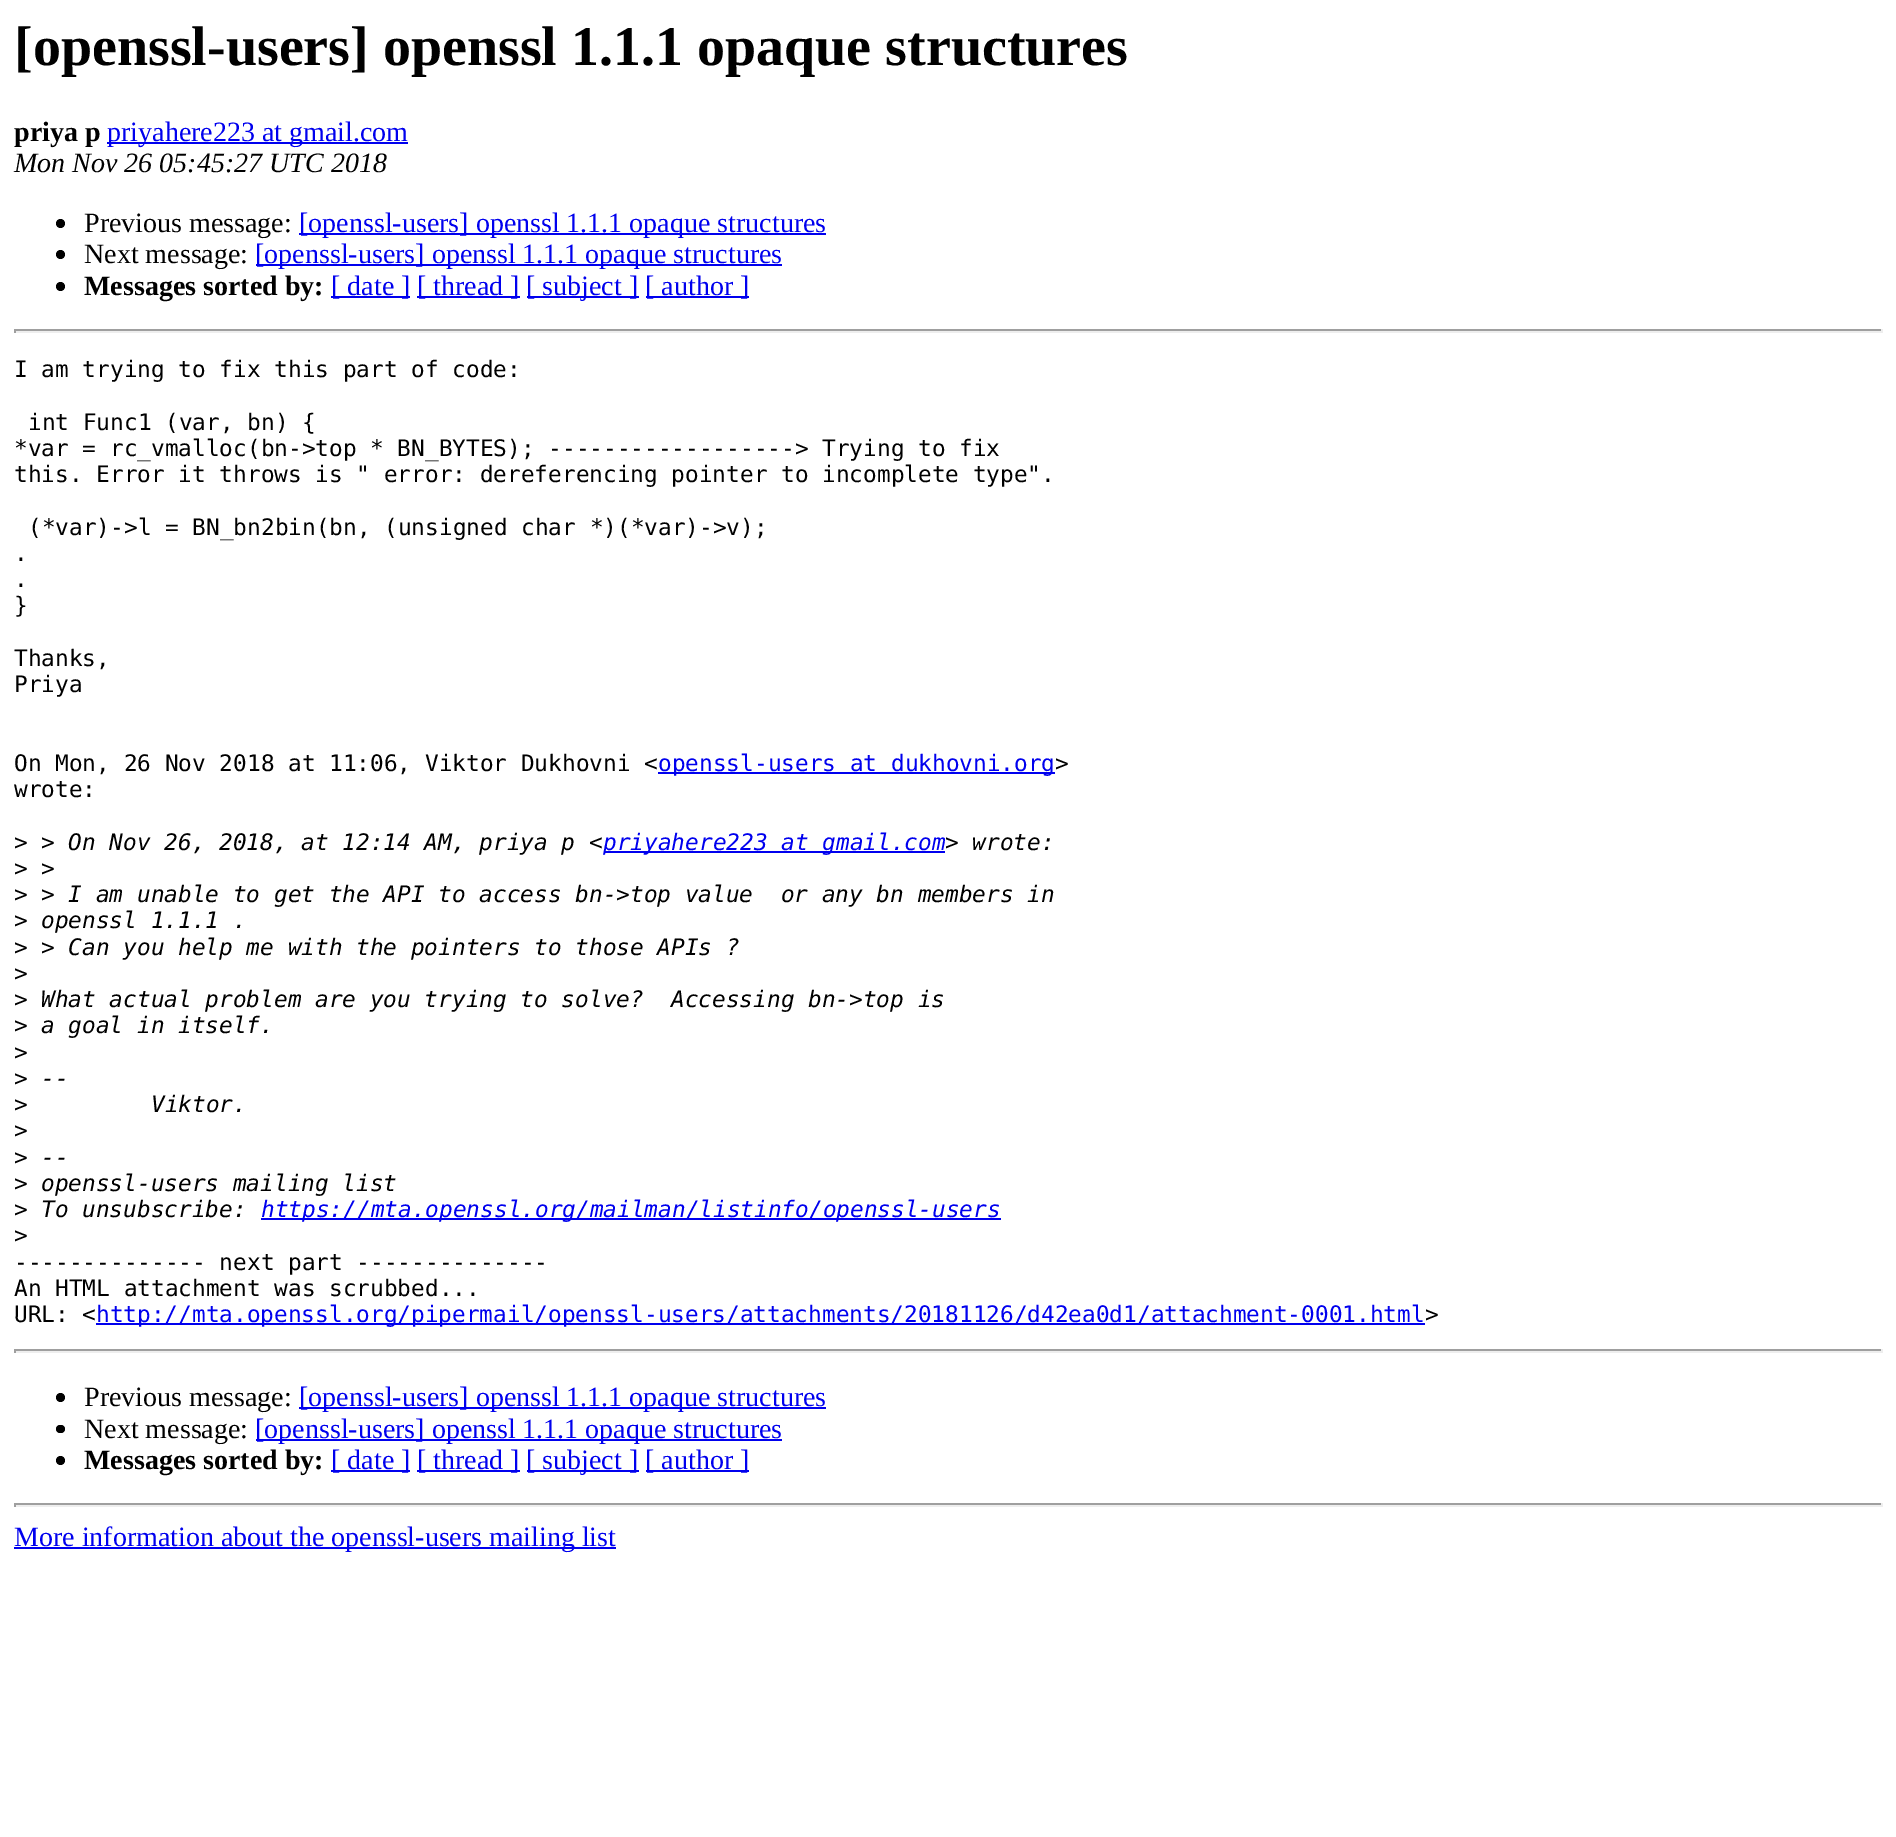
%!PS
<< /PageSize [1896 1837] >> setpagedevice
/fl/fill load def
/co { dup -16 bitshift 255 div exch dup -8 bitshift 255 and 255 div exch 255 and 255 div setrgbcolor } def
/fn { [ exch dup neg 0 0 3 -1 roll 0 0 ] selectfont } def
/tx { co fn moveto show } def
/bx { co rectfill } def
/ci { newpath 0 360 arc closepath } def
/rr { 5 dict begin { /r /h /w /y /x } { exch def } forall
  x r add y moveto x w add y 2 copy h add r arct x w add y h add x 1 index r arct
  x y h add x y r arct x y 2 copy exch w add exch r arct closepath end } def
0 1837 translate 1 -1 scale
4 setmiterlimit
0 0 1896 1837 16#FFFFFF bx
107 142 301 2 16#0000EE bx
16#000000 co
60.5 223.5 4.5 ci fl
299 233 527 2 16#0000EE bx
16#000000 co
60.5 254.5 4.5 ci fl
256 264 526 2 16#0000EE bx
16#000000 co
60.5 286.5 4.5 ci fl
331 296 79 2 16#0000EE bx
417 296 103 2 16#0000EE bx
527 296 112 2 16#0000EE bx
646 296 103 2 16#0000EE bx
14 329 1869 2 16#9F9F9F bx
1881 329 2 4 16#EEEEEE bx
14 331 1869 2 16#EEEEEE bx
14 329 2 4 16#9F9F9F bx
658 772 397 2 16#0000EE bx
604 851 341 2 16#0000EE bx
261 1218 740 2 16#0000EE bx
96 1323 1329 2 16#0000EE bx
14 1349 1869 2 16#9F9F9F bx
1881 1349 2 4 16#EEEEEE bx
14 1351 1869 2 16#EEEEEE bx
14 1349 2 4 16#9F9F9F bx
16#000000 co
60.5 1397.5 4.5 ci fl
299 1407 527 2 16#0000EE bx
16#000000 co
56 1425 9 8 4 rr fl
256 1439 526 2 16#0000EE bx
16#000000 co
60.5 1460.5 4.5 ci fl
331 1470 79 2 16#0000EE bx
417 1470 103 2 16#0000EE bx
527 1470 112 2 16#0000EE bx
646 1470 103 2 16#0000EE bx
14 1503 1869 2 16#9F9F9F bx
1881 1503 2 4 16#EEEEEE bx
14 1505 1869 2 16#EEEEEE bx
14 1503 2 4 16#9F9F9F bx
14 1547 602 2 16#0000EE bx
([openssl-users] openssl 1.1.1 opaque structures) 14 65 /LiberationSerif-Bold 56 16#000000 tx
(priya p) 14 141 /LiberationSerif-Bold 28 16#000000 tx
(priyahere223 at gmail.com) 107 141 /LiberationSerif-Regular 28 16#0000EE tx
(Mon Nov 26 05:45:27 UTC 2018) 14 172 /LiberationSerif-Italic 28 16#000000 tx
(Previous message:) 84 232 /LiberationSerif-Regular 28 16#000000 tx
([openssl-users] openssl 1.1.1 opaque structures) 299 232 /LiberationSerif-Regular 28 16#0000EE tx
(Next message:) 84 263 /LiberationSerif-Regular 28 16#000000 tx
([openssl-users] openssl 1.1.1 opaque structures) 255 263 /LiberationSerif-Regular 28 16#0000EE tx
(Messages sorted by:) 84 295 /LiberationSerif-Bold 28 16#000000 tx
([ date ]) 331 295 /LiberationSerif-Regular 28 16#0000EE tx
([ thread ]) 417 295 /LiberationSerif-Regular 28 16#0000EE tx
([ subject ]) 526 295 /LiberationSerif-Regular 28 16#0000EE tx
([ author ]) 645 295 /LiberationSerif-Regular 28 16#0000EE tx
(I am trying to fix this part of code:) 14 377 /DejaVuSansMono-Regular 22.75 16#000000 tx
(int Func1 \(var, bn\) {) 28 430 /DejaVuSansMono-Regular 22.75 16#000000 tx
(*var = rc_vmalloc\(bn->top * BN_BYTES\); ------------------> Trying to fix) 14 456 /DejaVuSansMono-Regular 22.75 16#000000 tx
(this. Error it throws is " error: dereferencing pointer to incomplete type".) 14 482 /DejaVuSansMono-Regular 22.75 16#000000 tx
(\(*var\)->l = BN_bn2bin\(bn, \(unsigned char *\)\(*var\)->v\);) 28 535 /DejaVuSansMono-Regular 22.75 16#000000 tx
(.) 14 561 /DejaVuSansMono-Regular 22.75 16#000000 tx
(.) 14 587 /DejaVuSansMono-Regular 22.75 16#000000 tx
(}) 14 613 /DejaVuSansMono-Regular 22.75 16#000000 tx
(Thanks,) 14 666 /DejaVuSansMono-Regular 22.75 16#000000 tx
(Priya) 14 692 /DejaVuSansMono-Regular 22.75 16#000000 tx
(On Mon, 26 Nov 2018 at 11:06, Viktor Dukhovni <) 14 771 /DejaVuSansMono-Regular 22.75 16#000000 tx
(openssl-users at dukhovni.org) 658 771 /DejaVuSansMono-Regular 22.75 16#0000EE tx
(>) 1055 771 /DejaVuSansMono-Regular 22.75 16#000000 tx
(wrote:) 14 797 /DejaVuSansMono-Regular 22.75 16#000000 tx
(>) 14 850 /DejaVuSansMono-Regular 22.75 16#000000 tx
(> On Nov 26, 2018, at 12:14 AM, priya p <) 41 850 /DejaVuSansMono-Italic 22.75 16#000000 tx
(priyahere223 at gmail.com) 603 850 /DejaVuSansMono-Italic 22.75 16#0000EE tx
(> wrote:) 945 850 /DejaVuSansMono-Italic 22.75 16#000000 tx
(>) 14 876 /DejaVuSansMono-Regular 22.75 16#000000 tx
(>) 41 876 /DejaVuSansMono-Italic 22.75 16#000000 tx
(>) 14 902 /DejaVuSansMono-Regular 22.75 16#000000 tx
(> I am unable to get the API to access bn->top value  or any bn members in) 41 902 /DejaVuSansMono-Italic 22.75 16#000000 tx
(>) 14 928 /DejaVuSansMono-Regular 22.75 16#000000 tx
(openssl 1.1.1 .) 41 928 /DejaVuSansMono-Italic 22.75 16#000000 tx
(>) 14 955 /DejaVuSansMono-Regular 22.75 16#000000 tx
(> Can you help me with the pointers to those APIs ?) 41 955 /DejaVuSansMono-Italic 22.75 16#000000 tx
(>) 14 981 /DejaVuSansMono-Regular 22.75 16#000000 tx
(>) 14 1007 /DejaVuSansMono-Regular 22.75 16#000000 tx
(What actual problem are you trying to solve?  Accessing bn->top is) 41 1007 /DejaVuSansMono-Italic 22.75 16#000000 tx
(>) 14 1033 /DejaVuSansMono-Regular 22.75 16#000000 tx
(a goal in itself.) 41 1033 /DejaVuSansMono-Italic 22.75 16#000000 tx
(>) 14 1060 /DejaVuSansMono-Regular 22.75 16#000000 tx
(>) 14 1086 /DejaVuSansMono-Regular 22.75 16#000000 tx
(--) 41 1086 /DejaVuSansMono-Italic 22.75 16#000000 tx
(>) 14 1112 /DejaVuSansMono-Regular 22.75 16#000000 tx
(Viktor.) 151 1112 /DejaVuSansMono-Italic 22.75 16#000000 tx
(>) 14 1138 /DejaVuSansMono-Regular 22.75 16#000000 tx
(>) 14 1165 /DejaVuSansMono-Regular 22.75 16#000000 tx
(--) 41 1165 /DejaVuSansMono-Italic 22.75 16#000000 tx
(>) 14 1191 /DejaVuSansMono-Regular 22.75 16#000000 tx
(openssl-users mailing list) 41 1191 /DejaVuSansMono-Italic 22.75 16#000000 tx
(>) 14 1217 /DejaVuSansMono-Regular 22.75 16#000000 tx
(To unsubscribe:) 41 1217 /DejaVuSansMono-Italic 22.75 16#000000 tx
(https://mta.openssl.org/mailman/listinfo/openssl-users) 261 1217 /DejaVuSansMono-Italic 22.75 16#0000EE tx
(>) 14 1243 /DejaVuSansMono-Regular 22.75 16#000000 tx
(-------------- next part --------------) 14 1270 /DejaVuSansMono-Regular 22.75 16#000000 tx
(An HTML attachment was scrubbed...) 14 1296 /DejaVuSansMono-Regular 22.75 16#000000 tx
(URL: <) 14 1322 /DejaVuSansMono-Regular 22.75 16#000000 tx
(http://mta.openssl.org/pipermail/openssl-users/attachments/20181126/d42ea0d1/attachment-0001.html) 96 1322 /DejaVuSansMono-Regular 22.75 16#0000EE tx
(>) 1425 1322 /DejaVuSansMono-Regular 22.75 16#000000 tx
(Previous message:) 84 1406 /LiberationSerif-Regular 28 16#000000 tx
([openssl-users] openssl 1.1.1 opaque structures) 299 1406 /LiberationSerif-Regular 28 16#0000EE tx
(Next message:) 84 1438 /LiberationSerif-Regular 28 16#000000 tx
([openssl-users] openssl 1.1.1 opaque structures) 255 1438 /LiberationSerif-Regular 28 16#0000EE tx
(Messages sorted by:) 84 1469 /LiberationSerif-Bold 28 16#000000 tx
([ date ]) 331 1469 /LiberationSerif-Regular 28 16#0000EE tx
([ thread ]) 417 1469 /LiberationSerif-Regular 28 16#0000EE tx
([ subject ]) 526 1469 /LiberationSerif-Regular 28 16#0000EE tx
([ author ]) 645 1469 /LiberationSerif-Regular 28 16#0000EE tx
(More information about the openssl-users mailing list) 14 1546 /LiberationSerif-Regular 28 16#0000EE tx
showpage
